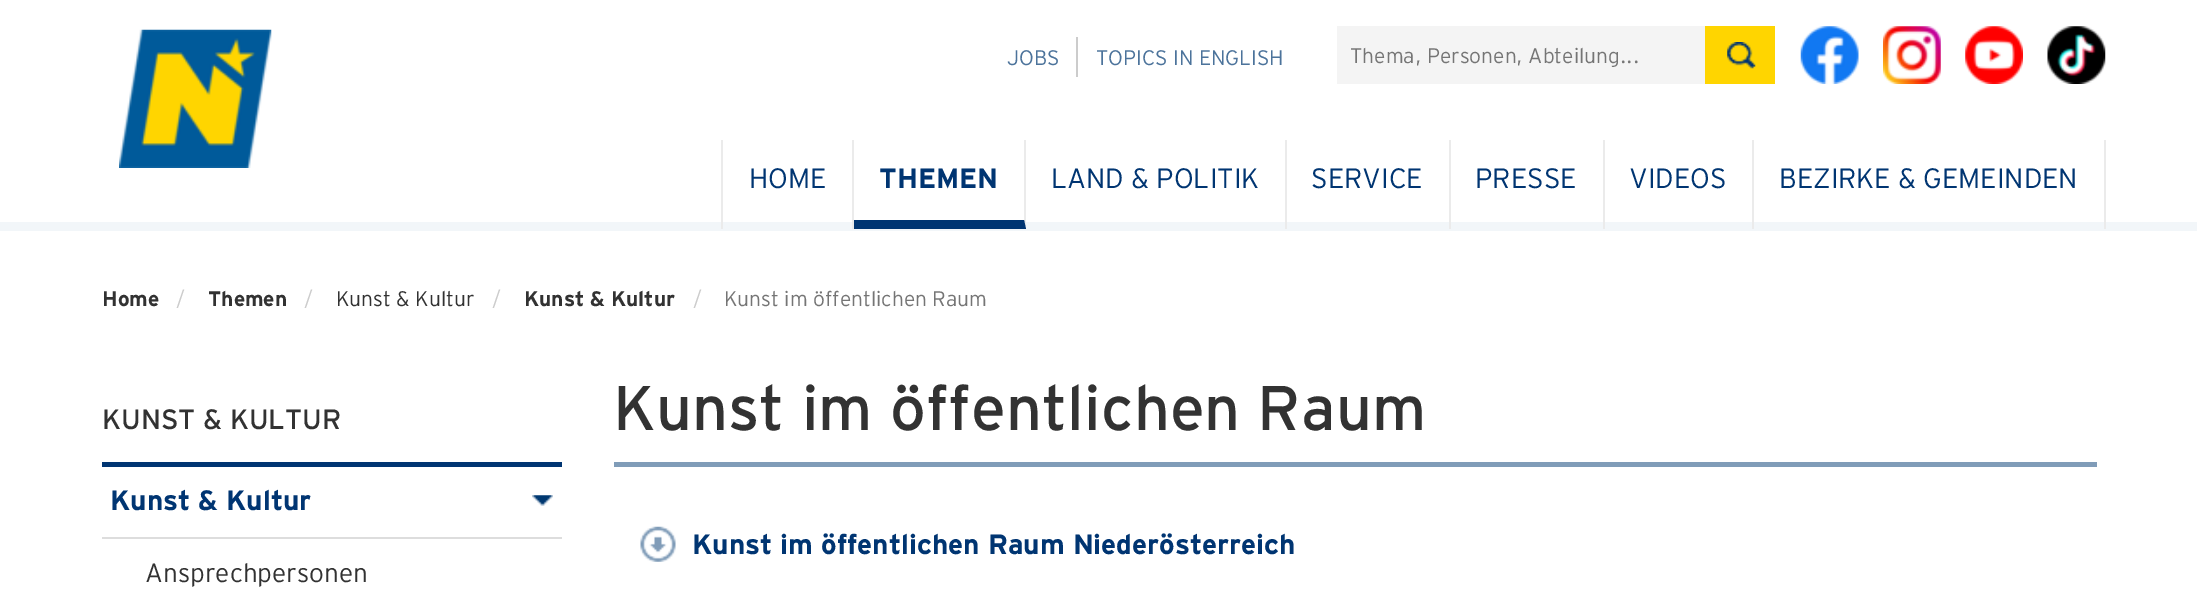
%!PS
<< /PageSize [2197 595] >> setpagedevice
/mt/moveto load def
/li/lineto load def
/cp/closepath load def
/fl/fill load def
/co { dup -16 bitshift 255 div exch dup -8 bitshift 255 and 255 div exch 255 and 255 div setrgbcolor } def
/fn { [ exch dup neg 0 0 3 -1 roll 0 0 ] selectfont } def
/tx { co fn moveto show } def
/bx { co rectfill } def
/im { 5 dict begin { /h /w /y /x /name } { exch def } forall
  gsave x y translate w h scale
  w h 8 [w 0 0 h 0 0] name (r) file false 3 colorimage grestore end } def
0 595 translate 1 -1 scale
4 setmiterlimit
0 0 2197 595 16#FFFFFF bx
0 222 2197 9 16#F2F6F9 bx
(media/1.raw) 119 29 153 139 im
1076 37 2 40 16#CCCCCC bx
1337 26 368 58 16#F4F4F4 bx
1705 26 70 58 16#FFD500 bx
(media/2.raw) 1727 42 29 27 im
(media/3.raw) 1800 26 59 58 im
(media/4.raw) 1883 26 58 58 im
(media/5.raw) 1965 26 58 58 im
(media/6.raw) 2047 26 59 58 im
852 140 2 89 16#EBEBEB bx
721 140 2 89 16#EBEBEB bx
1026 140 mt 1026 229 li 1024 220 li 1024 140 li cp fl
16#003572 co
1026 229 mt 854 229 li 854 220 li 1024 220 li cp fl
1285 140 2 89 16#EBEBEB bx
1449 140 2 89 16#EBEBEB bx
1603 140 2 89 16#EBEBEB bx
1752 140 2 89 16#EBEBEB bx
2104 140 2 89 16#EBEBEB bx
102 462 460 5 16#003572 bx
102 537 460 2 16#DDDDDD bx
(media/7.raw) 532 495 21 11 im
614 462 1483 5 16#809CB8 bx
(media/8.raw) 640 526 36 36 im
(JOBS) 1007 65 /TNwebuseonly-Light 21 16#4C739B tx
(TOPICS IN ENGLISH) 1096 65 /TNwebuseonly-Light 21 16#4C739B tx
(Thema, Personen, Abteilung...) 1350 63 /TNwebuseonly-Light 21 16#757575 tx
(HOME) 749 188 /TNwebuseonly-Light 28 16#003572 tx
(THEMEN) 879 188 /TNwebuseonly-Bold 28 16#003572 tx
(LAND & POLITIK) 1051 188 /TNwebuseonly-Light 28 16#003572 tx
(SERVICE) 1311 188 /TNwebuseonly-Light 28 16#003572 tx
(PRESSE) 1475 188 /TNwebuseonly-Light 28 16#003572 tx
(VIDEOS) 1629 188 /TNwebuseonly-Light 28 16#003572 tx
(BEZIRKE & GEMEINDEN) 1779 188 /TNwebuseonly-Light 28 16#003572 tx
(Home) 102 306 /TNwebuseonly-Bold 21 16#323232 tx
(/) 176 306 /TNwebuseonly-Light 21 16#CCCCCC tx
(Themen) 208 306 /TNwebuseonly-Bold 21 16#323232 tx
(/) 304 306 /TNwebuseonly-Light 21 16#CCCCCC tx
(Kunst & Kultur) 336 306 /TNwebuseonly-Light 21 16#323232 tx
(/) 492 306 /TNwebuseonly-Light 21 16#CCCCCC tx
(Kunst & Kultur) 524 306 /TNwebuseonly-Bold 21 16#323232 tx
(/) 693 306 /TNwebuseonly-Light 21 16#CCCCCC tx
(Kunst im öffentlichen Raum) 724 306 /TNwebuseonly-Light 21 16#757575 tx
(KUNST & KULTUR) 102 429 /TNwebuseonly-Regular 28 16#323232 tx
(Kunst & Kultur) 110 510 /TNwebuseonly-Bold 28 16#003572 tx
(Ansprechpersonen) 145 582 /TNwebuseonly-Light 26.25 16#323232 tx
(Kunst im öffentlichen Raum) 613 430 /TNwebuseonly-Regular 63 16#323232 tx
(Kunst im öffentlichen Raum Niederösterreich) 692 554 /TNwebuseonly-Bold 28 16#003572 tx
showpage
